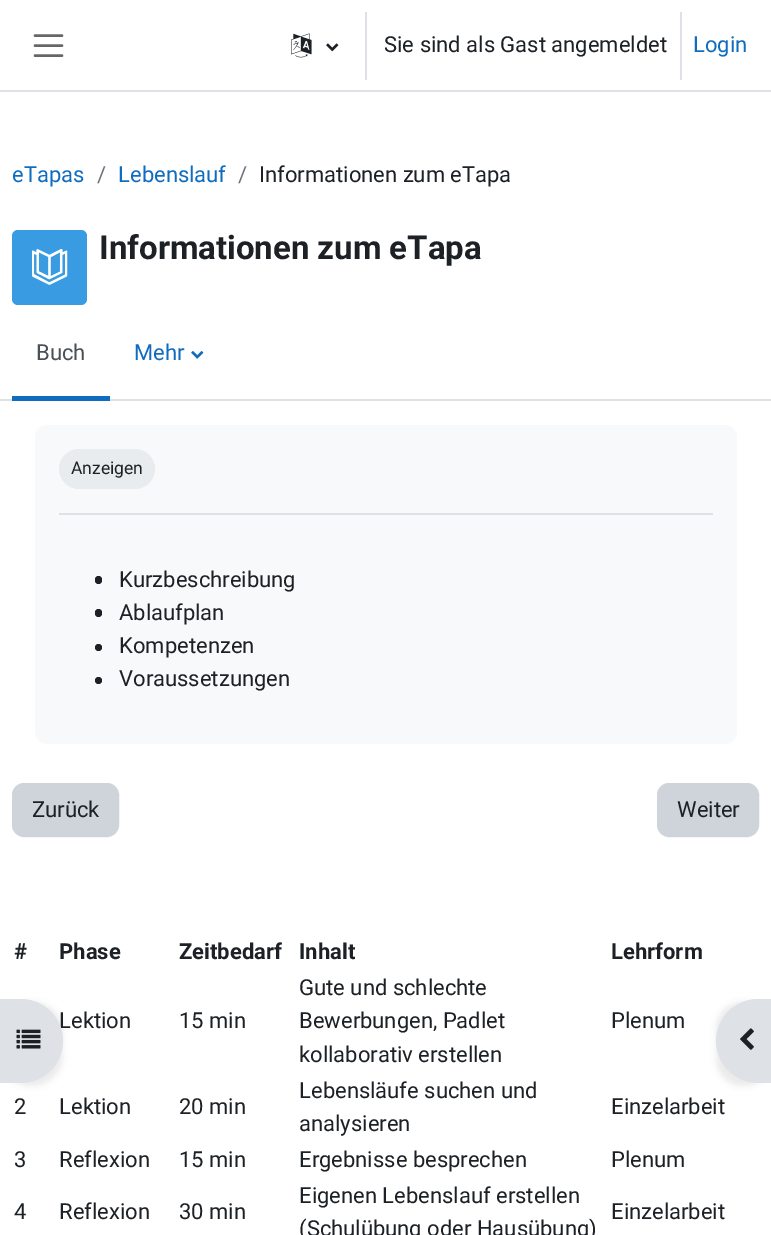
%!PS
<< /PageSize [771 1235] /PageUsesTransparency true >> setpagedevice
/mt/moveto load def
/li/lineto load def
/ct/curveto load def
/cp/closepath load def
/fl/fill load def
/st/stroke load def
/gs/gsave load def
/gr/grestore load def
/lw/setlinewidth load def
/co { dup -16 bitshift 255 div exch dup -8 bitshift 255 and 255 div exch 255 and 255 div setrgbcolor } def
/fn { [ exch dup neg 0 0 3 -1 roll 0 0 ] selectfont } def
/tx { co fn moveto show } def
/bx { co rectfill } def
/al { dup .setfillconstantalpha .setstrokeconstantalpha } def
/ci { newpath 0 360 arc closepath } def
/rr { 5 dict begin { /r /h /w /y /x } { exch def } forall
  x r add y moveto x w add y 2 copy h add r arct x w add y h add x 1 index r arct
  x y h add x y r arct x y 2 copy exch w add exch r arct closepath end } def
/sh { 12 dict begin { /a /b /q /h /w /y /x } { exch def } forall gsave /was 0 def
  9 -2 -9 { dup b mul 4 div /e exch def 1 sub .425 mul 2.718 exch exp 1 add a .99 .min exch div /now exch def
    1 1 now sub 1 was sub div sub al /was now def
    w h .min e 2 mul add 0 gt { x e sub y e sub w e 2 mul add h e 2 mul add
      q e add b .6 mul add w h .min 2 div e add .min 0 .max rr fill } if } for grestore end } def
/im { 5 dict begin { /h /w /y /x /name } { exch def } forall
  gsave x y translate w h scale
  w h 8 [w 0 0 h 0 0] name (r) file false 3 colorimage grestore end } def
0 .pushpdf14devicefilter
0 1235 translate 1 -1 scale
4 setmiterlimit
0 0 771 1235 16#FFFFFF bx
0 90 771 2 16#DEE2E6 bx
16#666666 co
2.5 lw
1 setlinecap
35 35.5 mt 62 35.5 li 35 45.5 mt 62 45.5 li 35 55.5 mt 62 55.5 li st
(media/1.raw) 291 33 21 25 im
(media/2.raw) 326 43 13 9 im
365 12 2 68 16#DEE2E6 bx
680 12 2 68 16#DEE2E6 bx
16#399BE2 co
12 230 75 75 6 rr fl
(media/3.raw) 32 249 36 36 im
0 399 771 2 16#DEE2E6 bx
12 396 98 5 16#0F6CBF bx
(media/4.raw) 191 351 13 8 im
16#F8F9FA co
35 425 702 319 12 rr fl
59 513 654 2 16#DEE2E6 bx
16#E9ECEF co
59 449 96 40 20 rr fl
16#1D2125 co
95 576 7 8 3.5 rr fl
95 609 7 8 3.5 rr fl
98.5 647.5 3.5 ci fl
98.5 680.5 3.5 ci fl
16#CED4DA co
13 784 105 52 11 rr gs fl gr
2 lw
0 setlinecap
st
658 784 100 52 11 rr gs fl gr
st
16#000000 co
0 1002 63 84 42 3 .07 sh
716 1002 55 84 42 3 .07 sh
16#DEE2E6 co
758 999 mt 771 999 li 771 1083 li 758 1083 li 735 1083 716 1064 716 1041 ct 716 1018 735 999 758 999 ct cp fl
(media/6.raw) 740 1028 14 22 im
(Sie sind als Gast angemeldet) 384 52 /Roboto-Regular 22 16#1D2125 tx
(Login) 693 52 /Roboto-Regular 22 16#0F6CBF tx
(eTapas) 12 182 /Roboto-Regular 22 16#0F6CBF tx
(/) 97 182 /Roboto-Regular 22 16#6A737B tx
(Lebenslauf) 118 182 /Roboto-Regular 22 16#0F6CBF tx
(/) 238 182 /Roboto-Regular 22 16#6A737B tx
(Informationen zum eTapa) 259 182 /Roboto-Regular 22 16#1D2125 tx
(Informationen zum eTapa) 99 259 /Roboto-Bold 33 16#1D2125 tx
(Buch) 36 360 /Roboto-Regular 22 16#495057 tx
(Mehr) 134 360 /Roboto-Regular 22 16#0F6CBF tx
(Anzeigen) 71 474 /Roboto-Regular 17.5 16#1D2125 tx
(Kurzbeschreibung) 119 587 /Roboto-Regular 22 16#1D2125 tx
(Ablaufplan) 119 620 /Roboto-Regular 22 16#1D2125 tx
(Kompetenzen) 119 653 /Roboto-Regular 22 16#1D2125 tx
(Voraussetzungen) 119 686 /Roboto-Regular 22 16#1D2125 tx
(Zurück) 32 817 /Roboto-Regular 22 16#1D2125 tx
(Weiter) 677 817 /Roboto-Regular 22 16#1D2125 tx
(#) 14 959 /Roboto-Bold 22 16#1D2125 tx
(Phase) 59 959 /Roboto-Bold 22 16#1D2125 tx
(Zeitbedarf) 179 959 /Roboto-Bold 22 16#1D2125 tx
(Inhalt) 299 959 /Roboto-Bold 22 16#1D2125 tx
(Lehrform) 611 959 /Roboto-Bold 22 16#1D2125 tx
(Lektion) 59 1028 /Roboto-Regular 22 16#1D2125 tx
(15 min) 179 1028 /Roboto-Regular 22 16#1D2125 tx
(Gute und schlechte) 299 995 /Roboto-Regular 22 16#1D2125 tx
(Bewerbungen, Padlet) 299 1028 /Roboto-Regular 22 16#1D2125 tx
(kollaborativ erstellen) 299 1062 /Roboto-Regular 22 16#1D2125 tx
(Plenum) 611 1028 /Roboto-Regular 22 16#1D2125 tx
(2) 14 1114 /Roboto-Regular 22 16#1D2125 tx
(Lektion) 59 1114 /Roboto-Regular 22 16#1D2125 tx
(20 min) 179 1114 /Roboto-Regular 22 16#1D2125 tx
(Lebensläufe suchen und) 299 1098 /Roboto-Regular 22 16#1D2125 tx
(analysieren) 299 1131 /Roboto-Regular 22 16#1D2125 tx
(Einzelarbeit) 611 1114 /Roboto-Regular 22 16#1D2125 tx
(3) 14 1167 /Roboto-Regular 22 16#1D2125 tx
(Reflexion) 59 1167 /Roboto-Regular 22 16#1D2125 tx
(15 min) 179 1167 /Roboto-Regular 22 16#1D2125 tx
(Ergebnisse besprechen) 299 1167 /Roboto-Regular 22 16#1D2125 tx
(Plenum) 611 1167 /Roboto-Regular 22 16#1D2125 tx
(4) 14 1219 /Roboto-Regular 22 16#1D2125 tx
(Reflexion) 59 1219 /Roboto-Regular 22 16#1D2125 tx
(30 min) 179 1219 /Roboto-Regular 22 16#1D2125 tx
(Eigenen Lebenslauf erstellen) 299 1203 /Roboto-Regular 22 16#1D2125 tx
(\(Schulübung oder Hausübung\)) 299 1236 /Roboto-Regular 22 16#1D2125 tx
(Einzelarbeit) 611 1219 /Roboto-Regular 22 16#1D2125 tx
16#DEE2E6 co
0 999 mt 21 999 li 44 999 63 1018 63 1041 ct 63 1064 44 1083 21 1083 ct 0 1083 li cp fl
(media/5.raw) 16 1029 25 20 im
.poppdf14devicefilter showpage
